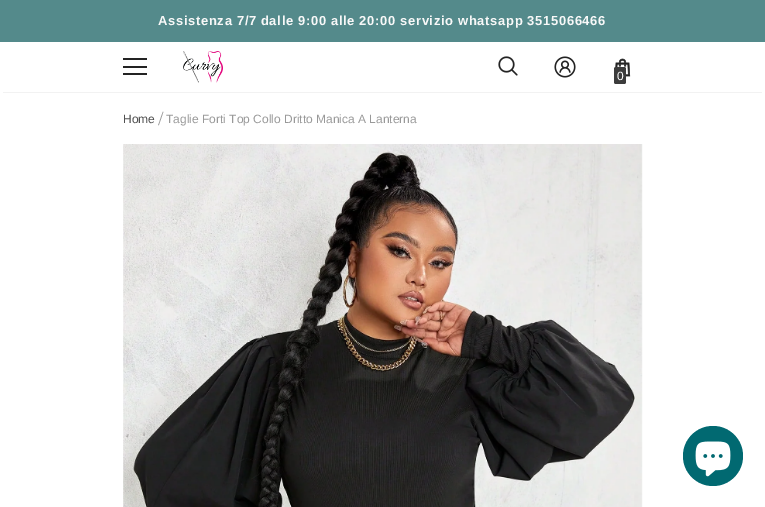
%!PS
<< /PageSize [765 507] /PageUsesTransparency true >> setpagedevice
/mt/moveto load def
/fl/fill load def
/gs/gsave load def
/gr/grestore load def
/co { dup -16 bitshift 255 div exch dup -8 bitshift 255 and 255 div exch 255 and 255 div setrgbcolor } def
/fn { [ exch dup neg 0 0 3 -1 roll 0 0 ] selectfont } def
/tx { co fn moveto show } def
/bx { co rectfill } def
/al { dup .setfillconstantalpha .setstrokeconstantalpha } def
/ci { newpath 0 360 arc closepath } def
/rr { 5 dict begin { /r /h /w /y /x } { exch def } forall
  x r add y moveto x w add y 2 copy h add r arct x w add y h add x 1 index r arct
  x y h add x y r arct x y 2 copy exch w add exch r arct closepath end } def
/sh { 12 dict begin { /a /b /q /h /w /y /x } { exch def } forall gsave /was 0 def
  9 -2 -9 { dup b mul 4 div /e exch def 1 sub .425 mul 2.718 exch exp 1 add a .99 .min exch div /now exch def
    1 1 now sub 1 was sub div sub al /was now def
    w h .min e 2 mul add 0 gt { x e sub y e sub w e 2 mul add h e 2 mul add
      q e add b .6 mul add w h .min 2 div e add .min 0 .max rr fill } if } for grestore end } def
/im { 5 dict begin { /h /w /y /x /name } { exch def } forall
  gsave x y translate w h scale
  w h 8 [w 0 0 h 0 0] name (r) file false 3 colorimage grestore end } def
0 .pushpdf14devicefilter
0 507 translate 1 -1 scale
4 setmiterlimit
0 0 765 507 16#FFFFFF bx
0 0 765 42 16#548A8B bx
gs
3 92 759 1 rectclip
16#000000 co
3 48 759 44 0 1.5 .12 sh
gr
123 58 24 2 16#232323 bx
123 66 24 2 16#232323 bx
123 73 24 2 16#232323 bx
(media/1.raw) 183 51 40 32 im
(media/2.raw) 498 56 20 20 im
(media/3.raw) 554 56 22 22 im
(media/4.raw) 615 58 16 19 im
16#3C3C3C co
614 67 12 17 2 rr fl
(media/5.raw) 123 144 520 363 im
16#016971 co
713 456 30 ci fl
(media/6.raw) 695 441 36 36 im
/LiberationSans-Bold 13 fn
16#F8F8F8 co
158 25 mt .65 0 (Assistenza 7/7 dalle 9:00 alle 20:00 servizio whatsapp 3515066466) ashow
(0) 617 80 /LiberationSans-Regular 12 16#FFFFFF tx
(Home) 123 123 /LiberationSans-Regular 12 16#505050 tx
(/) 158 125 /LiberationSerif-Regular 20 16#999999 tx
(Taglie Forti Top Collo Dritto Manica A Lanterna) 166 123 /LiberationSans-Regular 12 16#999999 tx
.poppdf14devicefilter showpage
